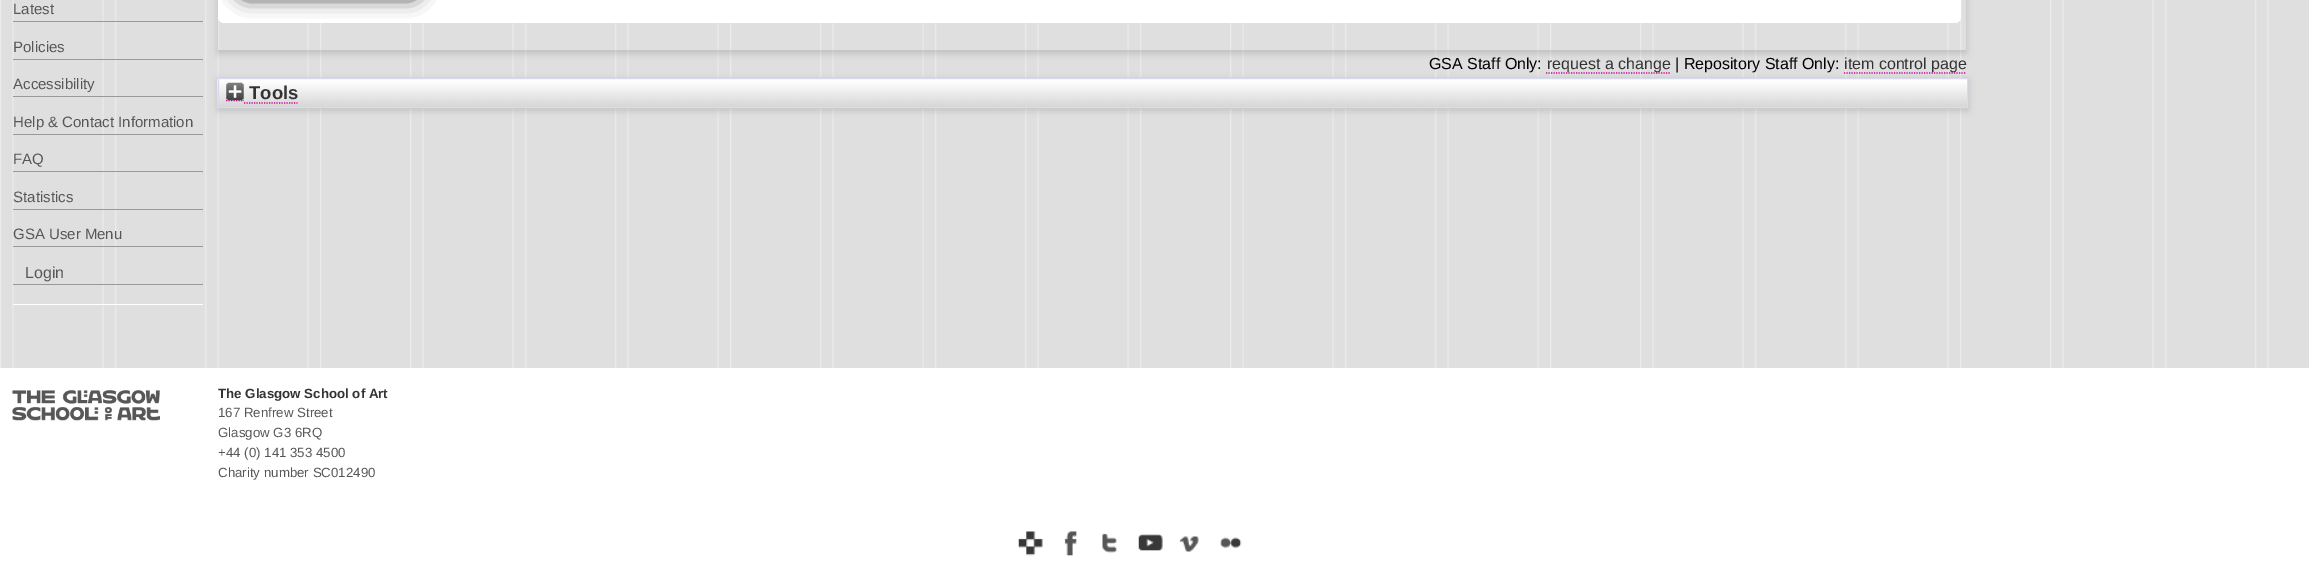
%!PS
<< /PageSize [2309 584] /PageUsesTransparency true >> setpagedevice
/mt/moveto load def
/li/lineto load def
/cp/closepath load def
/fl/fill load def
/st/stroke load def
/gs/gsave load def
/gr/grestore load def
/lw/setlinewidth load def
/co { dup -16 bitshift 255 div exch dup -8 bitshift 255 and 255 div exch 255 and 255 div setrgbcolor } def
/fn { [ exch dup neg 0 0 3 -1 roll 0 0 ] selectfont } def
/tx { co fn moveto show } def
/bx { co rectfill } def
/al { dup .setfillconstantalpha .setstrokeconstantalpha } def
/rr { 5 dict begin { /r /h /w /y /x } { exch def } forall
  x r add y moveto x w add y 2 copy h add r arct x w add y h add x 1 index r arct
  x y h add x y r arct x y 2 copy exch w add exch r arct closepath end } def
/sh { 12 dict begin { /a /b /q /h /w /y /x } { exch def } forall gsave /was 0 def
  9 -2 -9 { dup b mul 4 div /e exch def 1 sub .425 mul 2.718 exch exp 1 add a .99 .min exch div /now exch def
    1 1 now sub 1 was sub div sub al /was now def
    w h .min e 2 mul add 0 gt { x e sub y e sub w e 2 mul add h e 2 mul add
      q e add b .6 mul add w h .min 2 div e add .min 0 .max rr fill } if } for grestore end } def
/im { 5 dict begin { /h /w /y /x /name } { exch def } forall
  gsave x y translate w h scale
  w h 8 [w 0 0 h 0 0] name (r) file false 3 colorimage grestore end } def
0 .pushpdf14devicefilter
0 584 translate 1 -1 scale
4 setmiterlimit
0 0 2309 584 16#FFFFFF bx
(media/1.raw) 0 0 2309 368 im
13 304 190 1 16#FFFFFF bx
13 21 190 1 16#999999 bx
13 59 190 1 16#999999 bx
13 96 190 1 16#999999 bx
13 134 190 1 16#999999 bx
13 171 190 1 16#999999 bx
13 209 190 1 16#999999 bx
13 246 190 1 16#999999 bx
13 284 190 1 16#999999 bx
gs
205 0 mt 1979 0 li 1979 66 li 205 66 li cp 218 -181 mt 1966 -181 li 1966 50 li 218 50 li cp eoclip newpath
16#646464 co
218 -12 1748 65 0 4 .3 sh
gr
16#FFFFFF co
218 -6 1743 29 6 rr fl
16#000000 co
239 -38 180 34 8 10 1 sh
16#646464 co
218 80 1750 30 0 4 .3 sh
16#CC0099 co
1.2 lw
[1.25 1.25] 0 setdash
1546 73 mt 1670 73 li st
1844 73 mt 1966 73 li st
(media/2.raw) 217 79 1750 29 im
16#D8DBEF co
1 lw
[] 0 setdash
218.5 78.5 1749 29 rectstroke
16#CC0099 co
1.2 lw
[1.25 1.25] 0 setdash
226 100.5 mt 244 100.5 li st
(media/3.raw) 226 82 18 19 im
244 103 mt 297.5 103 li st
(media/4.raw) 12 390 148 31 im
(media/5.raw) 1018 531 25 25 im
(media/6.raw) 1064 531 13 25 im
(media/7.raw) 1102 533 15 20 im
(media/8.raw) 1138 534 25 17 im
(media/9.raw) 1179 536 20 16 im
(media/10.raw) 1220 537 22 11 im
(Latest) 13 14 /LiberationSans-Regular 15 16#575757 tx
(Policies) 13 52 /LiberationSans-Regular 15 16#575757 tx
(Accessibility) 13 89 /LiberationSans-Regular 15 16#575757 tx
(Help & Contact Information) 13 127 /LiberationSans-Regular 15 16#575757 tx
(FAQ) 13 164 /LiberationSans-Regular 15 16#575757 tx
(Statistics) 13 202 /LiberationSans-Regular 15 16#575757 tx
(GSA User Menu) 13 239 /LiberationSans-Regular 15 16#575757 tx
(Login) 25 278 /LiberationSans-Regular 16 16#575757 tx
(GSA Staff Only:) 1429 69 /LiberationSans-Regular 16 16#000000 tx
(request a change) 1547 69 /LiberationSans-Regular 16 16#333333 tx
(| Repository Staff Only:) 1675 69 /LiberationSans-Regular 16 16#000000 tx
(item control page) 1844 69 /LiberationSans-Regular 16 16#333333 tx
(Tools) 249 99 /LiberationSans-Bold 18.5 16#333333 tx
(The Glasgow School of Art) 218 398 /LiberationSans-Bold 13.3 16#333333 tx
(167 Renfrew Street) 218 417 /LiberationSans-Regular 13.3 16#575757 tx
(Glasgow G3 6RQ) 218 437 /LiberationSans-Regular 13.3 16#575757 tx
(+44 \(0\) 141 353 4500) 218 457 /LiberationSans-Regular 13.3 16#575757 tx
(Charity number SC012490) 218 477 /LiberationSans-Regular 13.3 16#575757 tx
.poppdf14devicefilter showpage
